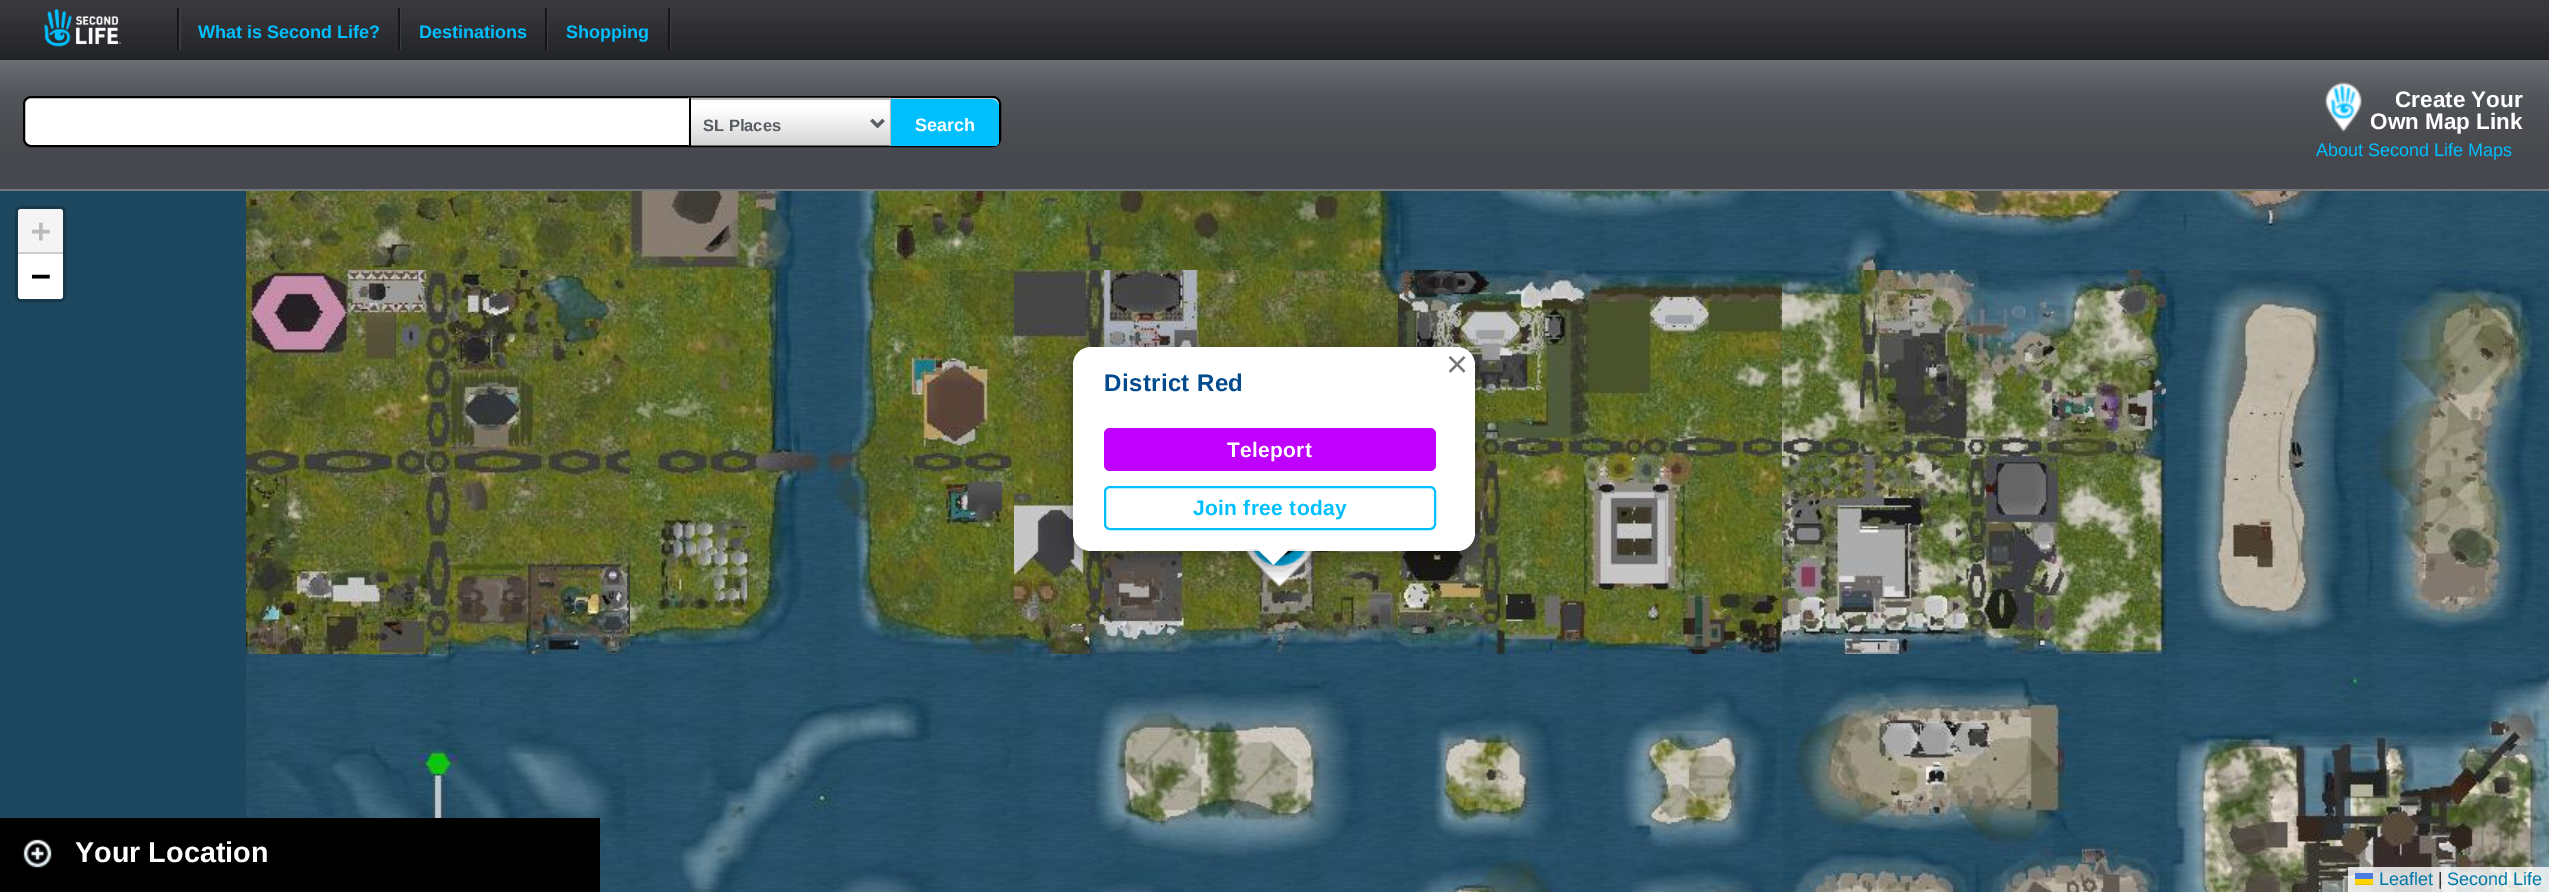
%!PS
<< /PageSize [2549 892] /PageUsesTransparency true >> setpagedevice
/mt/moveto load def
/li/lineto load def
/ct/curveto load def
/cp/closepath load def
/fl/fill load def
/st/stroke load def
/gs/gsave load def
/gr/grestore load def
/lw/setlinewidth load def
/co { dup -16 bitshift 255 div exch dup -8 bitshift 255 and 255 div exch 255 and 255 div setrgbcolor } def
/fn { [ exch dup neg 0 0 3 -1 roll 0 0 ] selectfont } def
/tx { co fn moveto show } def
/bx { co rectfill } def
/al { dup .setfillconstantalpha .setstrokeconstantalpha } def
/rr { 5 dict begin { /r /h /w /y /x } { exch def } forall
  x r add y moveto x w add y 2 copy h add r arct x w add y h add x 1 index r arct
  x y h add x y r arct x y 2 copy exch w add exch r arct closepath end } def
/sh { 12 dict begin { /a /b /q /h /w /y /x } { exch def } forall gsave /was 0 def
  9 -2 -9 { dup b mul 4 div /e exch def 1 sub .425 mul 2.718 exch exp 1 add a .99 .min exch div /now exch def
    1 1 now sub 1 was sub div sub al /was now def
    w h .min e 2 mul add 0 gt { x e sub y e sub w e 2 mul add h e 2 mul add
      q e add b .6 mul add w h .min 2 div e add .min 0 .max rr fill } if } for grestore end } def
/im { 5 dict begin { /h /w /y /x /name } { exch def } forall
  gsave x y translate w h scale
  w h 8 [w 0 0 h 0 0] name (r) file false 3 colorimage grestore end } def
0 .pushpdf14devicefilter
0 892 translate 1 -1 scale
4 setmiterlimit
0 0 2549 892 16#FFFFFF bx
(media/1.raw) 0 0 2549 60 im
(media/2.raw) 44 9 77 38 im
179 8 2 42 16#3A3E42 bx
177 8 2 42 16#161616 bx
400 8 1 42 16#3A3E42 bx
398 8 2 42 16#161616 bx
547 8 1 42 16#3A3E42 bx
545 8 2 42 16#161616 bx
670 8 1 42 16#3A3E42 bx
668 8 2 42 16#161616 bx
gs 0 60 mt 2549 60 li 2549 189 li 0 189 li cp clip newpath
<< /ShadingType 2 /ColorSpace /DeviceRGB /Coords [0 189 0 60] /Extend [true true] /Function << /FunctionType 3 /Domain [0 1] /Functions [<< /FunctionType 2 /Domain [0 1] /C0 [.278 .282 .302] /C1 [.278 .282 .302] /N 1 >> << /FunctionType 2 /Domain [0 1] /C0 [.278 .282 .302] /C1 [.318 .333 .349] /N 1 >> << /FunctionType 2 /Domain [0 1] /C0 [.318 .333 .349] /C1 [.42 .431 .451] /N 1 >>] /Bounds [.29 .71] /Encode [0 1 0 1 0 1] >> >> shfill gr
0 189 2549 2 16#72777E bx
16#FFFFFF co
24 97 976 49 7 rr gs fl gr
16#000000 co
2 lw
st
(media/3.raw) 688 97 203 49 im
689 98 202 2 16#BBBBBB bx
890 98 2 48 16#BBBBBB bx
689 98 2 48 16#000000 bx
16#595C62 co
3 lw
871.5 120 mt 877.5 126 li 883.5 120 li st
gs
24 98 975 48 6 rr clip newpath
16#00BFFF co
891 99 mt 991 99 li 995.5 99 999 102.5 999 107 ct 999 142 li 999 146.5 995.5 150 991 150 ct 891 150 li cp fl
gr
(media/4.raw) 2324 82 38 50 im
0 191 246 627 16#1D475F bx
16#17394C co
16.5 207.5 48 93 4.5 rr st
16#F4F4F4 co
21 209 mt 60 209 li 61.5 209 63 210.5 63 212 ct 63 254 li 18 254 li 18 212 li 18 210.5 19.5 209 21 209 ct cp fl
18 252 45 2 16#CCCCCC bx
16#FFFFFF co
18 254 mt 63 254 li 63 296 li 63 297.5 61.5 299 60 299 ct 21 299 li 19.5 299 18 297.5 18 296 ct cp fl
(media/22.raw) 2166 654 383 238 im
0.8 al
2348 867 201 25 16#FFFFFF bx
1 al
2355 873 18 6 16#4C7BE1 bx
2355 879 18 5 16#FFD500 bx
2355 884 18 1 16#E0BC00 bx
(media/5.raw) 246 191 384 79 im
(media/6.raw) 630 191 384 79 im
(media/7.raw) 1014 191 384 79 im
(media/8.raw) 1398 191 384 79 im
(media/9.raw) 1782 191 384 79 im
(media/10.raw) 2166 191 383 79 im
(media/11.raw) 246 270 384 384 im
(media/12.raw) 630 270 384 384 im
(media/13.raw) 1014 270 384 384 im
(media/14.raw) 1398 270 384 384 im
(media/15.raw) 1782 270 384 384 im
(media/16.raw) 2166 270 383 384 im
(media/17.raw) 246 654 384 238 im
(media/18.raw) 630 654 384 238 im
(media/19.raw) 1014 654 384 238 im
(media/20.raw) 1398 654 384 238 im
(media/21.raw) 1782 654 384 238 im
(media/23.raw) 1245 551 69 36 im
16#000000 co
1073 351 402 204 18 10.5 .4 sh
16#FFFFFF co
1073 347 402 204 18 rr fl
16#BF00FF co
1104 428 332 43 6 rr fl
16#00BFFF co
2 lw
1105 487 330 42 5 rr st
gs
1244 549 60 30 rectclip
16#000000 co
1262 539 25 25 0 10.5 .4 sh
gr
gs
1244 549 60 30 rectclip
16#FFFFFF co
1273.5 528.5 mt 1291.5 547 li 1273.5 565 li 1255.5 547 li cp fl
gr
0 818 600 74 16#000000 bx
(media/24.raw) 23 839 29 29 im
(What is Second Life?) 198 38 /LiberationSans-Bold 18 16#00BFFF tx
(Destinations) 419 38 /LiberationSans-Bold 18 16#00BFFF tx
(Shopping) 566 38 /LiberationSans-Bold 18 16#00BFFF tx
(SL Places) 703 131 /LiberationSans-Bold 16.5 16#595C62 tx
(Search) 915 131 /LiberationSans-Bold 18 16#FFFFFF tx
(Create Your) 2395 107 /LiberationSans-Bold 22.5 16#FFFFFF tx
(Own Map Link) 2370 129 /LiberationSans-Bold 22.5 16#FFFFFF tx
(About Second Life Maps) 2316 156 /LiberationSans-Regular 18 16#00BFFF tx
(+) 31 242 /DejaVuSansMono-Bold 33 16#BBBBBB tx
(−) 31 287 /DejaVuSansMono-Bold 33 16#000000 tx
(Leaflet) 2379 885 /LiberationSans-Regular 18 16#0078A8 tx
(|) 2438 885 /LiberationSans-Regular 18 16#333333 tx
(Second Life) 2447 885 /LiberationSans-Regular 18 16#0078A8 tx
(×) 1446 377 /LiberationSans-Regular 38 16#757575 tx
/LiberationSans-Bold 24 fn
16#014A8E co
1104 391 mt .4 0 (District Red) ashow
/LiberationSans-Bold 21 fn
16#FFFFFF co
1227 457 mt .3 0 (Teleport) ashow
16#00BFFF co
1193 515 mt .3 0 (Join free today) ashow
(Your Location) 75 862 /LiberationSans-Bold 28.75 16#FFFFFF tx
.poppdf14devicefilter showpage
